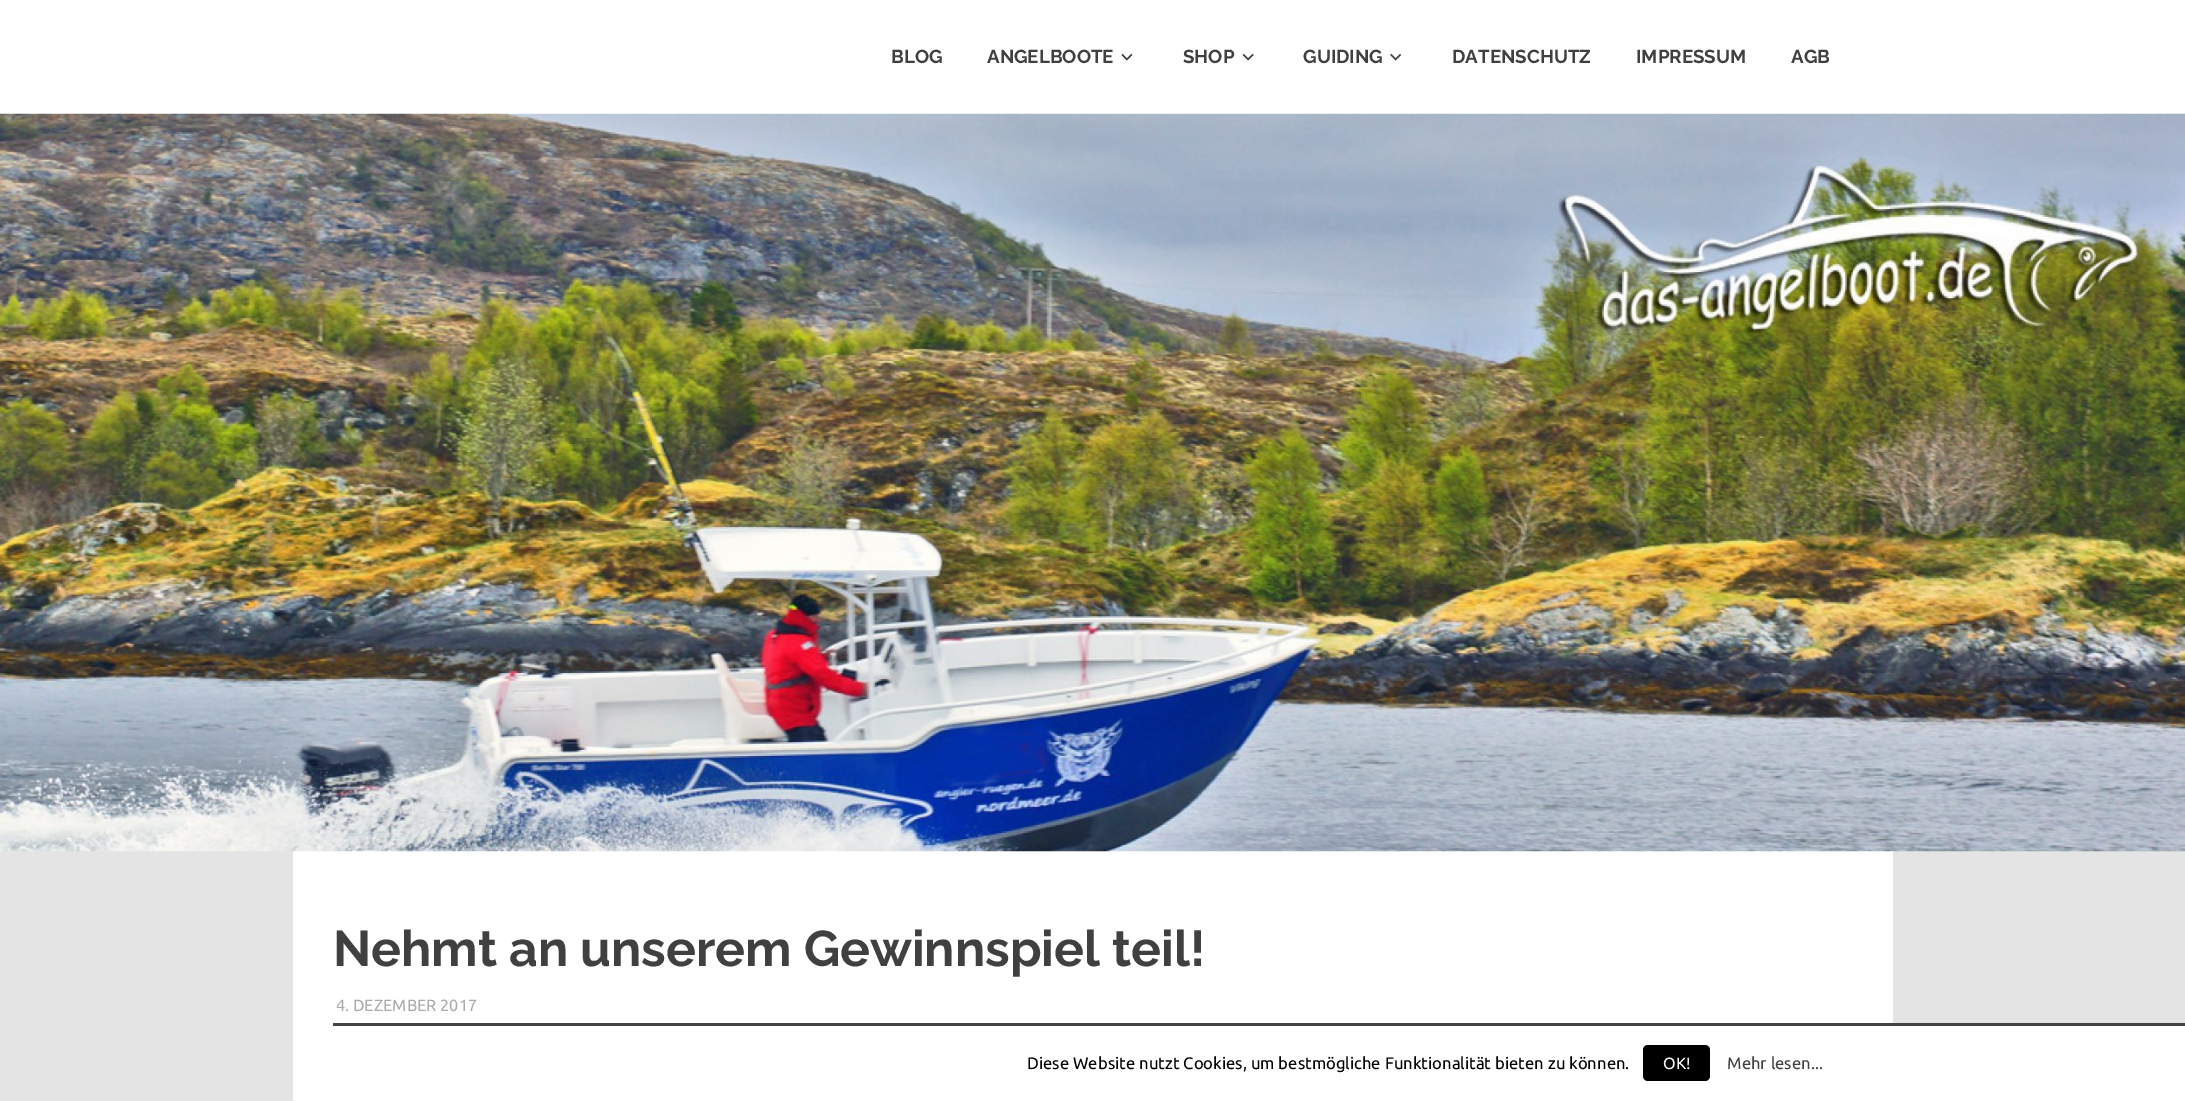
%!PS
<< /PageSize [2185 1101] >> setpagedevice
/fl/fill load def
/co { dup -16 bitshift 255 div exch dup -8 bitshift 255 and 255 div exch 255 and 255 div setrgbcolor } def
/fn { [ exch dup neg 0 0 3 -1 roll 0 0 ] selectfont } def
/tx { co fn moveto show } def
/bx { co rectfill } def
/rr { 5 dict begin { /r /h /w /y /x } { exch def } forall
  x r add y moveto x w add y 2 copy h add r arct x w add y h add x 1 index r arct
  x y h add x y r arct x y 2 copy exch w add exch r arct closepath end } def
/im { 5 dict begin { /h /w /y /x /name } { exch def } forall
  gsave x y translate w h scale
  w h 8 [w 0 0 h 0 0] name (r) file false 3 colorimage grestore end } def
0 1101 translate 1 -1 scale
4 setmiterlimit
0 0 2185 1101 16#E3E4E3 bx
0 0 2185 114 16#FFFFFF bx
(media/1.raw) 1121 53 12 8 im
(media/2.raw) 1242 53 12 8 im
(media/3.raw) 1390 53 12 8 im
293 851 1600 250 16#FFFFFF bx
(media/4.raw) 0 113 2185 739 im
1893 1026 292 75 16#FFFFFF bx
333 1023 1852 3 16#444444 bx
16#000000 co
1643 1045 67 36 5 rr fl
(BLOG) 891 63 /Raleway-Bold 18.75 16#404040 tx
(ANGELBOOTE) 987 63 /Raleway-Bold 18.75 16#404040 tx
(SHOP) 1183 63 /Raleway-Bold 18.75 16#404040 tx
(GUIDING) 1303 63 /Raleway-Bold 18.75 16#404040 tx
(DATENSCHUTZ) 1452 63 /Raleway-Bold 18.75 16#404040 tx
(IMPRESSUM) 1636 63 /Raleway-Bold 18.75 16#404040 tx
(AGB) 1791 63 /Raleway-Bold 18.75 16#404040 tx
(Nehmt an unserem Gewinnspiel teil!) 333 966 /Raleway-Bold 50 16#404040 tx
(4. DEZEMBER 2017) 336 1011 /Ubuntu-Regular 16.25 16#AAAAAA tx
(Diese Website nutzt Cookies, um bestmögliche Funktionalität bieten zu können.) 1027 1069 /Ubuntu-Regular 16.65 16#000000 tx
(OK!) 1663 1069 /Ubuntu-Regular 16.25 16#FFFFFF tx
(Mehr lesen...) 1727 1069 /Ubuntu-Regular 16.65 16#404040 tx
showpage
